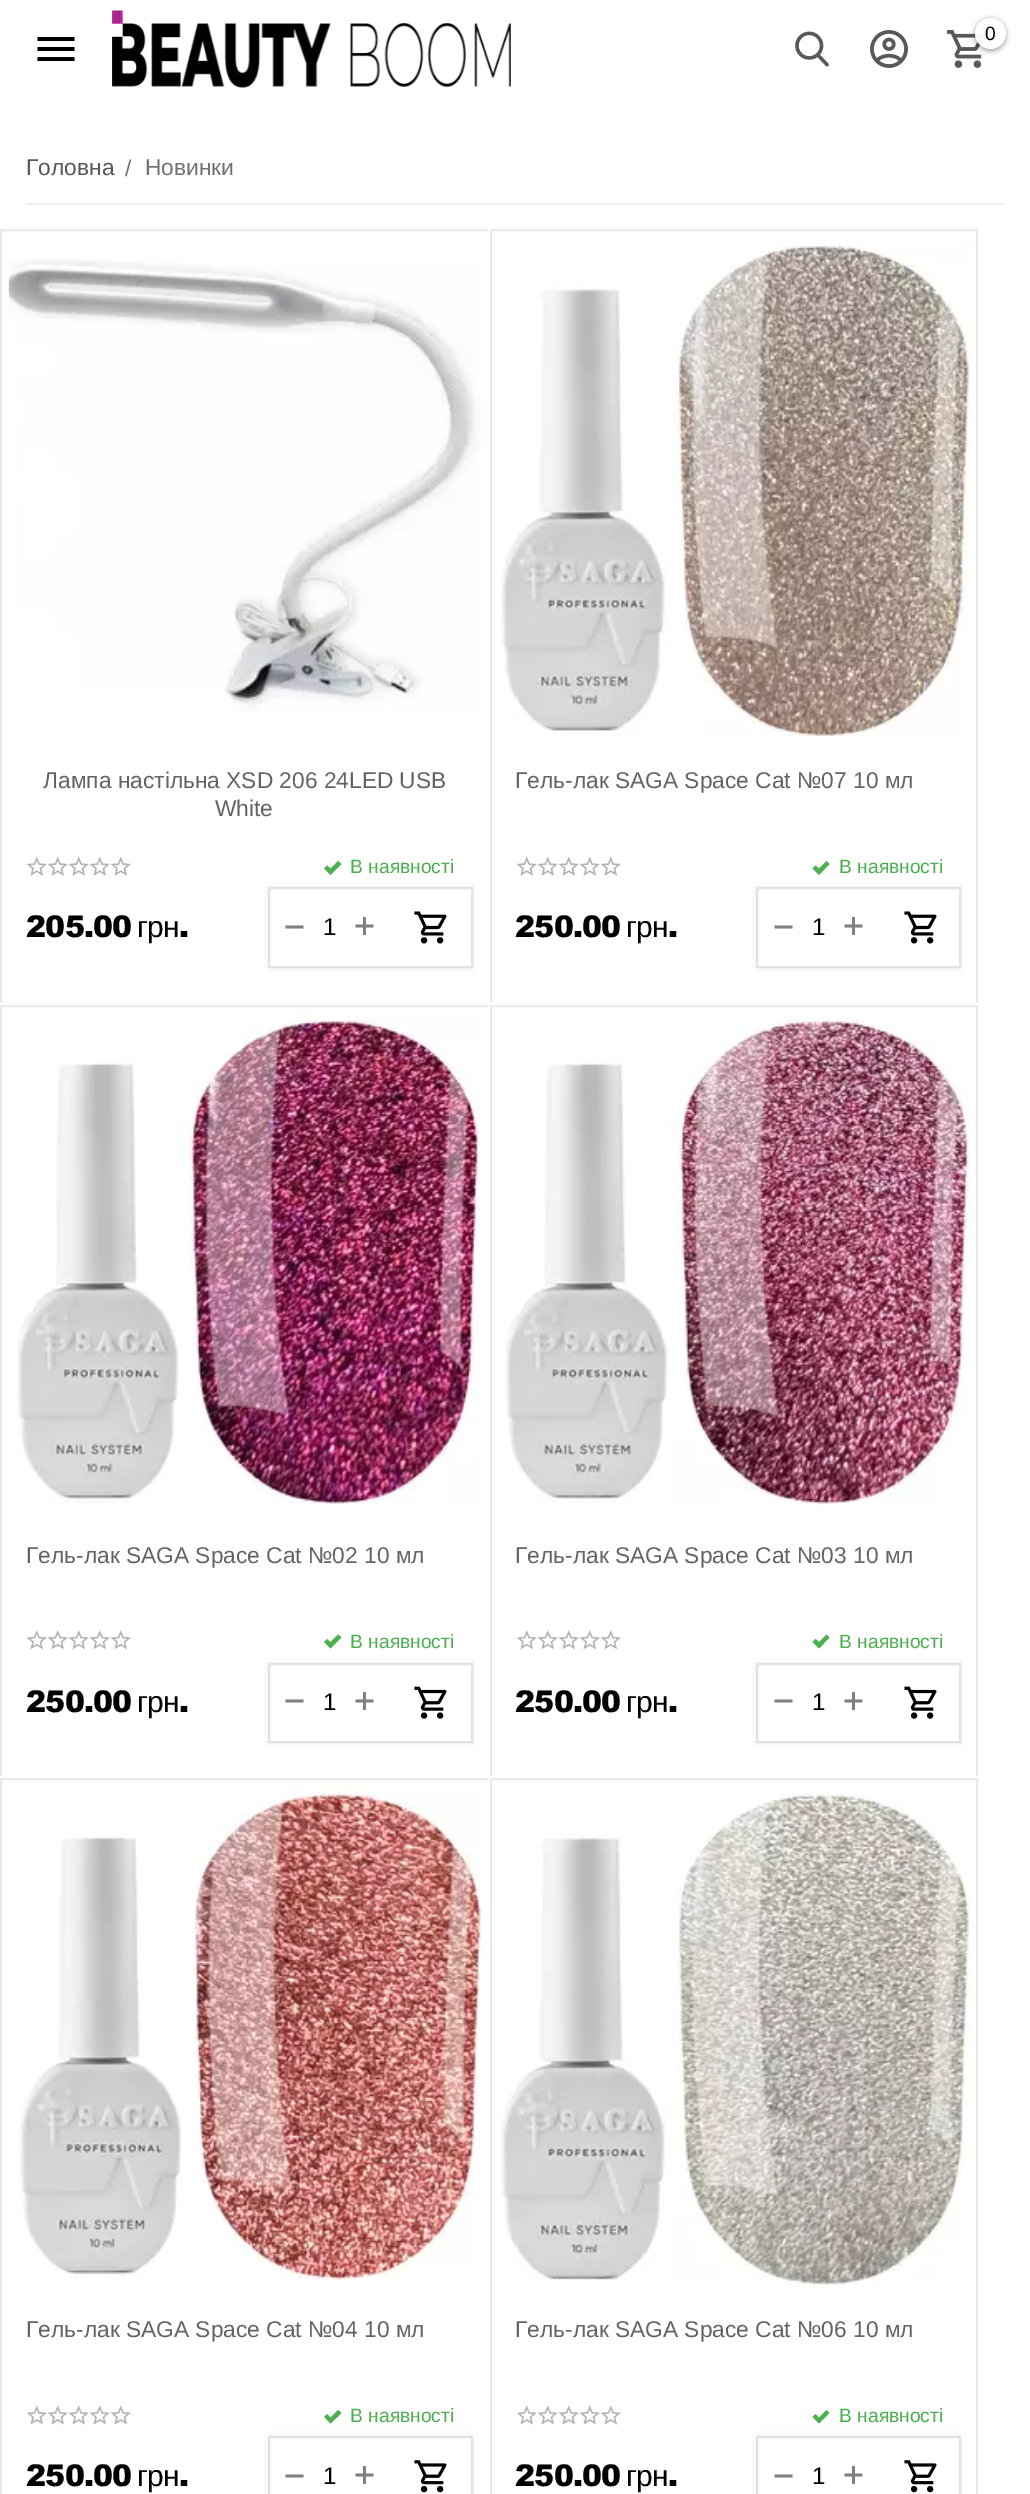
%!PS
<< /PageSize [1030 2494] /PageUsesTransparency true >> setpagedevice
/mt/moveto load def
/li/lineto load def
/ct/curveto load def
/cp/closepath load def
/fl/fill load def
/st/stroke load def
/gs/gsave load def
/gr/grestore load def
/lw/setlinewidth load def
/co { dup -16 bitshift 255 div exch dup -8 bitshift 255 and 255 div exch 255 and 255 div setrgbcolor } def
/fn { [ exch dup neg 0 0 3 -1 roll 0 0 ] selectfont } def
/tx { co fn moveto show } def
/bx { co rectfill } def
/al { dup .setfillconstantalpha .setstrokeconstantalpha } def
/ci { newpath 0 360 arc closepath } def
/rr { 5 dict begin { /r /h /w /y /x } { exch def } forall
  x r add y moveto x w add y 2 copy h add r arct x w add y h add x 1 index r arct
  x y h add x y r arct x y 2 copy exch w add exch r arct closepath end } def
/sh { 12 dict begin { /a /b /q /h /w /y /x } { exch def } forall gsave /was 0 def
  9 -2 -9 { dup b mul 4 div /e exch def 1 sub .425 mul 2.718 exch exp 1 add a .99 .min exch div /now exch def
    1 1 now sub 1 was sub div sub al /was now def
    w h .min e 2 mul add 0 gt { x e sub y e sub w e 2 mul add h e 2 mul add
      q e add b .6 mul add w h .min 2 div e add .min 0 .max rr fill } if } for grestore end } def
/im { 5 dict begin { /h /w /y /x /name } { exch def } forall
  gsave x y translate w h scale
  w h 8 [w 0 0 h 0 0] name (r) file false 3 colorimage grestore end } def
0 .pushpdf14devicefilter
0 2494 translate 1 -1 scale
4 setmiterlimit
0 0 1030 2494 16#FFFFFF bx
16#000000 co
37.5 61 mt 74.5 61 li 74.5 57 li 37.5 57 li cp 37.5 51 mt 74.5 51 li 74.5 47 li 37.5 47 li cp 37.5 37 mt 37.5 41 li 74.5 41 li 74.5 37 li cp fl
(media/1.raw) 112 10 399 78 im
(media/2.raw) 795 31 34 36 im
(media/3.raw) 870 30 38 38 im
(media/4.raw) 947 30 38 38 im
gs
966 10 mt 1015 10 li 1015 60 li 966 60 li cp 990.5 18 mt 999 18 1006 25 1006 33.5 ct 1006 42 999 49 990.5 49 ct 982 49 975 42 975 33.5 ct 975 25 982 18 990.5 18 ct cp eoclip newpath
975 19 31 32 15.5 2.5 .35 sh
gr
0.95 al
16#FFFFFF co
990.5 33.5 15.5 ci fl
1 al
26 203 979 2 16#EFEFEF bx
16#EAEAEA co
2 lw
1 230 488 774 rectstroke
(media/5.raw) 8 259 473 454 im
(media/6.raw) 27 856 104 20 im
16#4CAF50 co
330.5 875 mt 324 868.5 li 327 865.5 li 330.5 868.5 li 338 861 li 341.5 864 li cp fl
16#EFEFEF co
268 887 205 81 0 4.5 .9 sh
16#FFFFFF co
269 888 mt 472 888 li 472 967 li 269 967 li cp gs fl gr
16#E2E2E2 co
st
(media/7.raw) 414 911 33 33 im
16#FFFFFF co
489 229 490 776 rectstroke
16#EAEAEA co
491 230 486 774 rectstroke
(media/8.raw) 501 244 469 493 im
(media/6.raw) 517 856 104 20 im
16#4CAF50 co
819 875 mt 812.5 868.5 li 815.5 865.5 li 819 868.5 li 826.5 861 li 829.5 864 li cp fl
16#EFEFEF co
756 887 205 81 0 4.5 .9 sh
16#FFFFFF co
757 888 mt 960 888 li 960 967 li 757 967 li cp gs fl gr
16#E2E2E2 co
st
(media/7.raw) 904 911 33 33 im
16#FFFFFF co
-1 1004 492 775 rectstroke
16#EAEAEA co
1 1006 488 771 rectstroke
(media/9.raw) 17 1013 464 491 im
(media/10.raw) 26 1630 105 20 im
16#4CAF50 co
330.5 1648.5 mt 324 1642 li 327 1639 li 330.5 1642 li 338 1634.5 li 341.5 1637.5 li cp fl
16#EFEFEF co
268 1663 205 80 0 4.5 .9 sh
16#FFFFFF co
269 1664 mt 472 1664 li 472 1742 li 269 1742 li cp gs fl gr
16#E2E2E2 co
st
(media/11.raw) 414 1686 33 33 im
16#FFFFFF co
489 1004 490 775 rectstroke
16#EAEAEA co
491 1006 486 771 rectstroke
(media/12.raw) 505 1019 465 486 im
(media/10.raw) 516 1630 105 20 im
16#4CAF50 co
819 1648.5 mt 812.5 1642 li 815.5 1639 li 819 1642 li 826.5 1634.5 li 829.5 1637.5 li cp fl
16#EFEFEF co
756 1663 205 80 0 4.5 .9 sh
16#FFFFFF co
757 1664 mt 960 1664 li 960 1742 li 757 1742 li cp gs fl gr
16#E2E2E2 co
st
(media/11.raw) 904 1686 33 33 im
16#FFFFFF co
-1 1777 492 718 rectstroke
16#EAEAEA co
1 1779 488 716 rectstroke
(media/13.raw) 19 1787 462 494 im
(media/14.raw) 26 2405 105 20 im
16#4CAF50 co
330.5 2423.5 mt 324 2417 li 327 2414 li 330.5 2417.5 li 338 2410 li 341.5 2413 li cp fl
16#EFEFEF co
268 2436 205 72 0 4.5 .9 sh
16#FFFFFF co
269 2437 mt 472 2437 li 472 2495 li 269 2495 li cp gs fl gr
16#E2E2E2 co
st
(media/15.raw) 414 2460 33 33 im
16#FFFFFF co
489 1777 490 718 rectstroke
16#EAEAEA co
491 1779 486 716 rectstroke
(media/16.raw) 501 1793 469 493 im
(media/14.raw) 516 2405 105 20 im
16#4CAF50 co
819 2423.5 mt 812.5 2417 li 815.5 2414 li 819 2417.5 li 826.5 2410 li 829.5 2413 li cp fl
16#EFEFEF co
756 2436 205 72 0 4.5 .9 sh
16#FFFFFF co
757 2437 mt 960 2437 li 960 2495 li 757 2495 li cp gs fl gr
16#E2E2E2 co
st
(media/15.raw) 904 2460 33 33 im
(0) 985 40 /LiberationSans-Regular 19.25 16#000000 tx
(Головна) 26 175 /LiberationSans-Regular 22.75 16#595959 tx
(/) 125 176 /LiberationSans-Regular 22.75 16#737373 tx
(Новинки) 145 175 /LiberationSans-Regular 22.75 16#737373 tx
(Лампа настільна XSD 206 24LED USB) 43 788 /LiberationSans-Regular 22.75 16#646464 tx
(White) 215 816 /LiberationSans-Regular 22.75 16#646464 tx
(В наявності) 350 873 /LiberationSans-Regular 19.25 16#4CAF50 tx
/Arial-Black 30 fn
16#000000 co
26 937 mt -.75 0 (205.00) ashow
/LiberationSans-Regular 30 fn
137 937 mt -.75 0 (грн) ashow
/Arial-Black 30 fn
179 937 mt -.75 0 (.) ashow
(−) 284 938 /DejaVuSansMono-Regular 35 16#808080 tx
(1) 323 935 /LiberationSans-Regular 24 16#000000 tx
(+) 354 937 /DejaVuSansMono-Regular 35 16#808080 tx
(Гель-лак SAGA Space Cat №07 10 мл) 515 788 /LiberationSans-Regular 22.75 16#646464 tx
(В наявності) 839 873 /LiberationSans-Regular 19.25 16#4CAF50 tx
/Arial-Black 30 fn
16#000000 co
515 937 mt -.75 0 (250.00) ashow
/LiberationSans-Regular 30 fn
626 937 mt -.75 0 (грн) ashow
/Arial-Black 30 fn
668 937 mt -.75 0 (.) ashow
(−) 773 938 /DejaVuSansMono-Regular 35 16#808080 tx
(1) 812 935 /LiberationSans-Regular 24 16#000000 tx
(+) 843 937 /DejaVuSansMono-Regular 35 16#808080 tx
(Гель-лак SAGA Space Cat №02 10 мл) 26 1563 /LiberationSans-Regular 22.75 16#646464 tx
(В наявності) 350 1648 /LiberationSans-Regular 19.25 16#4CAF50 tx
/Arial-Black 30 fn
16#000000 co
26 1712 mt -.75 0 (250.00) ashow
/LiberationSans-Regular 30 fn
137 1712 mt -.75 0 (грн) ashow
/Arial-Black 30 fn
179 1712 mt -.75 0 (.) ashow
(−) 284 1712 /DejaVuSansMono-Regular 35 16#808080 tx
(1) 323 1710 /LiberationSans-Regular 24 16#000000 tx
(+) 354 1712 /DejaVuSansMono-Regular 35 16#808080 tx
(Гель-лак SAGA Space Cat №03 10 мл) 515 1563 /LiberationSans-Regular 22.75 16#646464 tx
(В наявності) 839 1648 /LiberationSans-Regular 19.25 16#4CAF50 tx
/Arial-Black 30 fn
16#000000 co
515 1712 mt -.75 0 (250.00) ashow
/LiberationSans-Regular 30 fn
626 1712 mt -.75 0 (грн) ashow
/Arial-Black 30 fn
668 1712 mt -.75 0 (.) ashow
(−) 773 1712 /DejaVuSansMono-Regular 35 16#808080 tx
(1) 812 1710 /LiberationSans-Regular 24 16#000000 tx
(+) 843 1712 /DejaVuSansMono-Regular 35 16#808080 tx
(Гель-лак SAGA Space Cat №04 10 мл) 26 2337 /LiberationSans-Regular 22.75 16#646464 tx
(В наявності) 350 2422 /LiberationSans-Regular 19.25 16#4CAF50 tx
/Arial-Black 30 fn
16#000000 co
26 2486 mt -.75 0 (250.00) ashow
/LiberationSans-Regular 30 fn
137 2486 mt -.75 0 (грн) ashow
/Arial-Black 30 fn
179 2486 mt -.75 0 (.) ashow
(−) 284 2487 /DejaVuSansMono-Regular 35 16#808080 tx
(1) 323 2484 /LiberationSans-Regular 24 16#000000 tx
(+) 354 2486 /DejaVuSansMono-Regular 35 16#808080 tx
(Гель-лак SAGA Space Cat №06 10 мл) 515 2337 /LiberationSans-Regular 22.75 16#646464 tx
(В наявності) 839 2422 /LiberationSans-Regular 19.25 16#4CAF50 tx
/Arial-Black 30 fn
16#000000 co
515 2486 mt -.75 0 (250.00) ashow
/LiberationSans-Regular 30 fn
626 2486 mt -.75 0 (грн) ashow
/Arial-Black 30 fn
668 2486 mt -.75 0 (.) ashow
(−) 773 2487 /DejaVuSansMono-Regular 35 16#808080 tx
(1) 812 2484 /LiberationSans-Regular 24 16#000000 tx
(+) 843 2486 /DejaVuSansMono-Regular 35 16#808080 tx
.poppdf14devicefilter showpage
